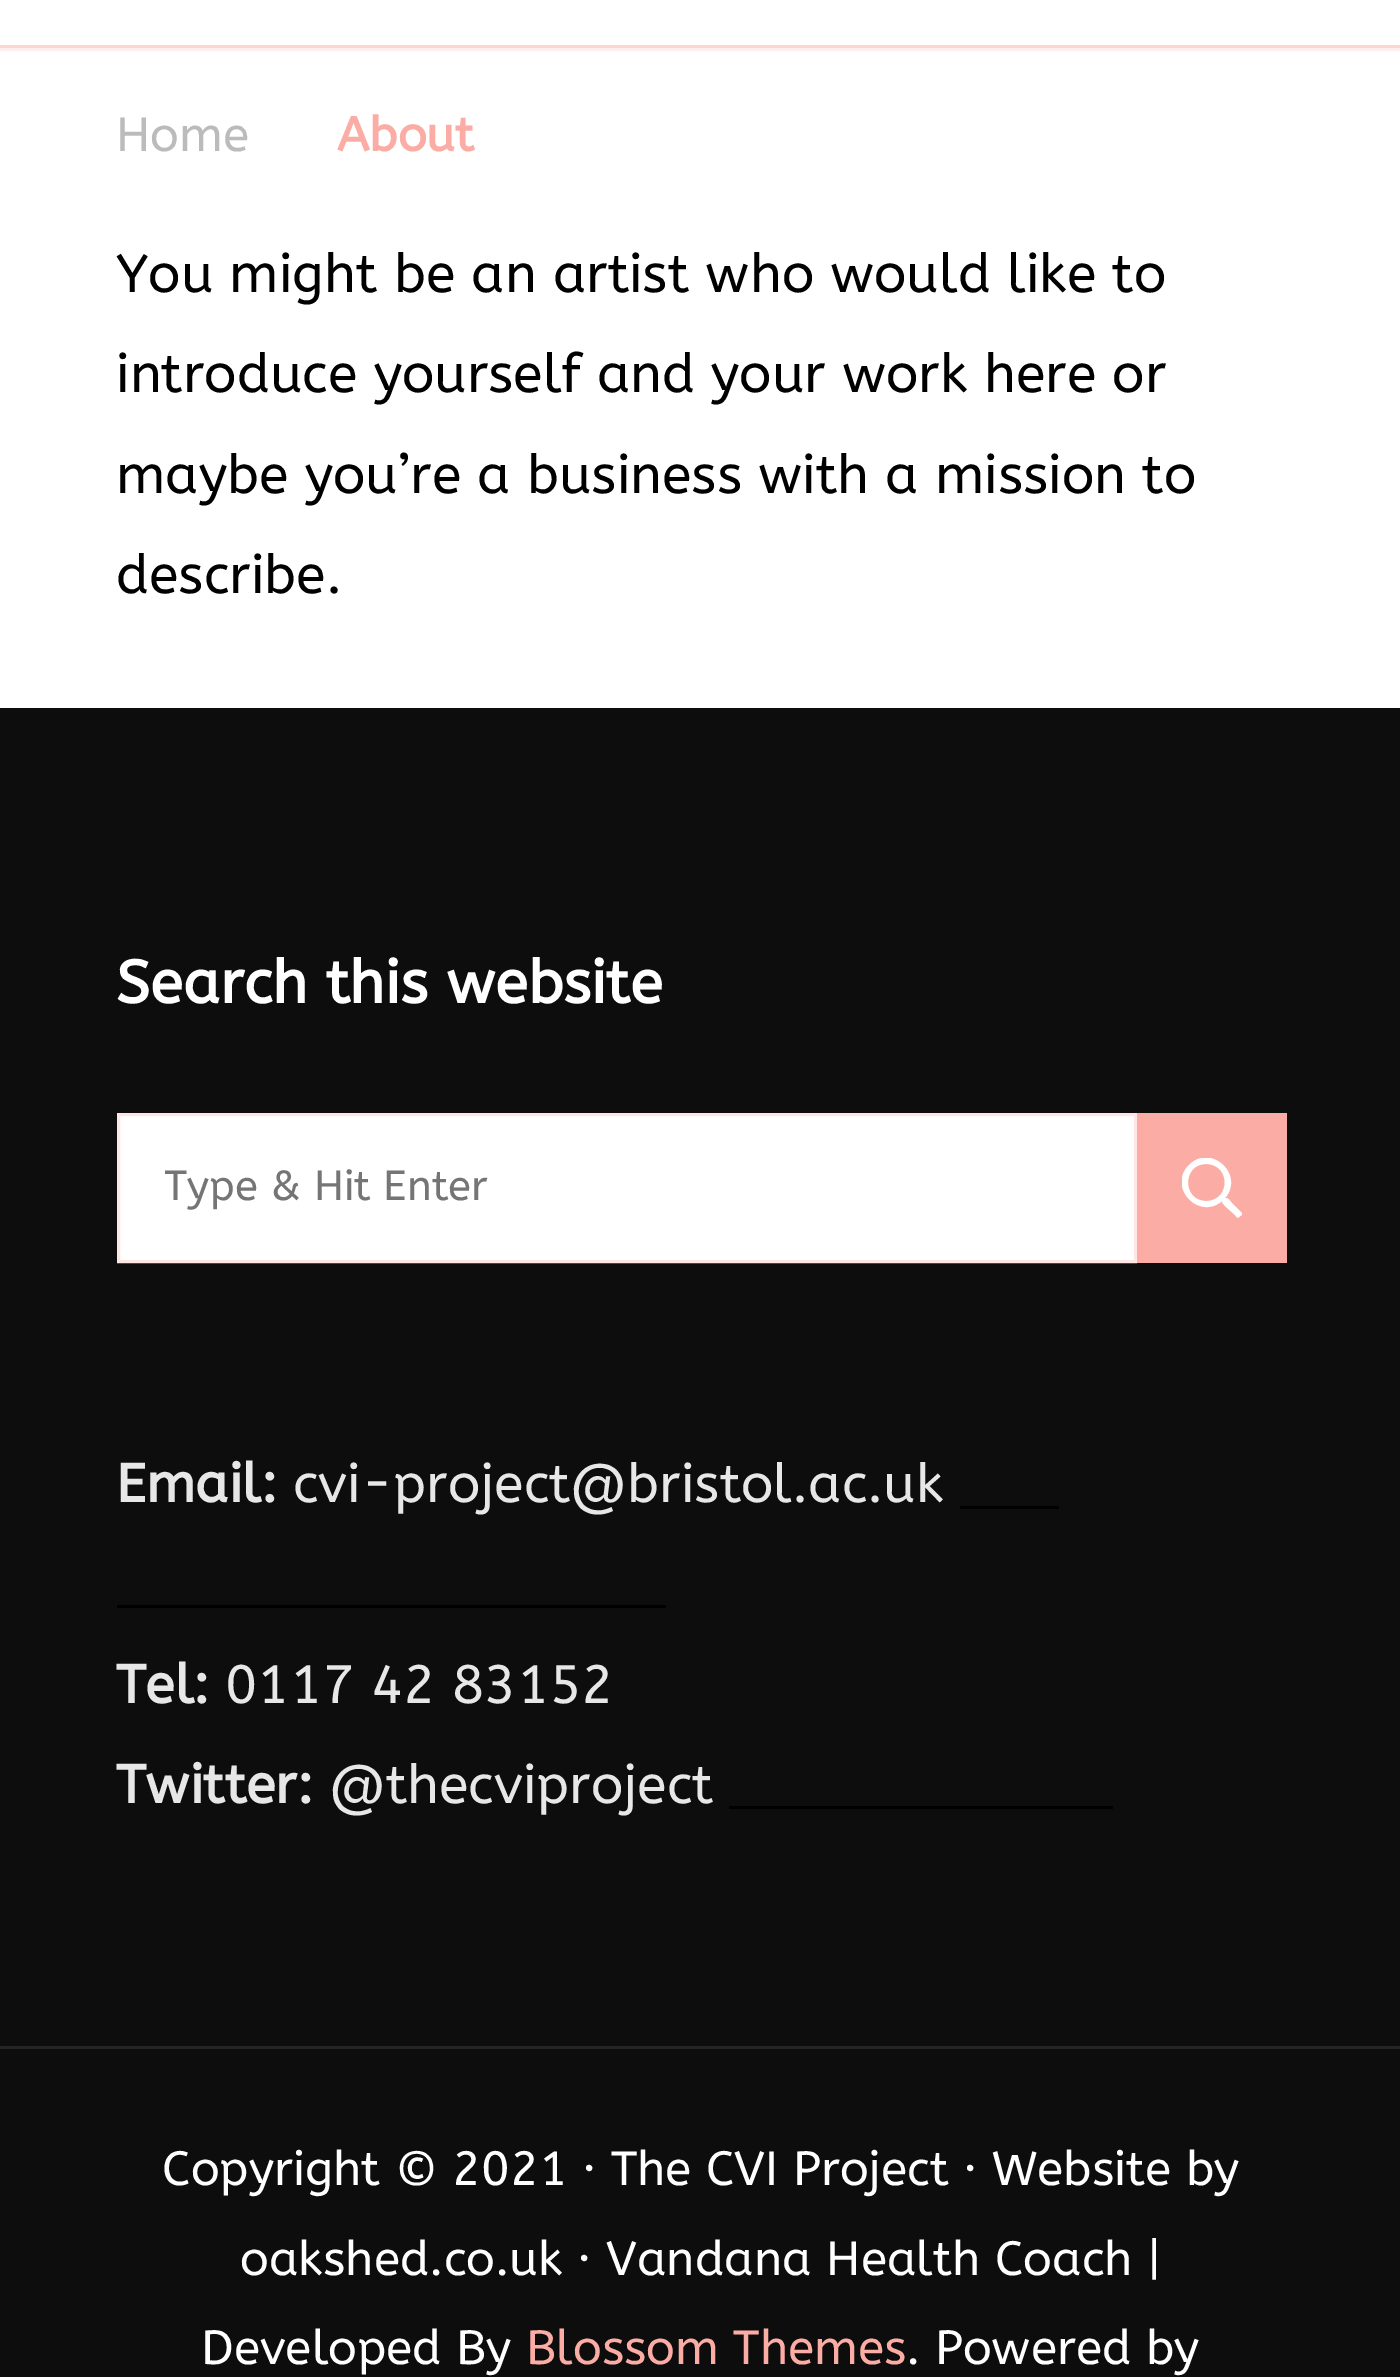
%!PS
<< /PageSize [1400 2377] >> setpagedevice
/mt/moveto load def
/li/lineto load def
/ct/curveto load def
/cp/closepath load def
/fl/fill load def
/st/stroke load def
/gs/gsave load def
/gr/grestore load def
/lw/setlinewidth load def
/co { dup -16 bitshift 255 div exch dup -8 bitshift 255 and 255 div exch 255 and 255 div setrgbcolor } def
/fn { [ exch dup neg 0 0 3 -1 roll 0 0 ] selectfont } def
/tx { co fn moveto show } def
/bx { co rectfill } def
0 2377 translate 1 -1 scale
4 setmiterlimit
0 0 1400 2377 16#FFFFFF bx
0 45 1400 3 16#FDD6D2 bx
0 48 1400 3 16#FEEEED bx
0 708 1400 1338 16#0D0D0D bx
16#FFFFFF co
118.5 1114.5 mt 1135.5 1114.5 li 1135.5 1261.5 li 118.5 1261.5 li cp gs fl gr
16#FEE6E4 co
3 lw
st
1137 1113 150 150 16#FBACA5 bx
gs
1182 1158 60 60 rectclip
16#FFFFFF co
1242 1213 mt 1232 1203 li 1229 1200 1229 1198 1225 1198 ct 1245 1175 1211 1143 1189 1165 ct 1167 1187 1199 1221 1222 1201 ct 1222 1204 1223 1203 1225 1206 ct 1235 1215 li 1237 1218 1238 1219 1240 1216 ct 1241 1216 1243 1214 1242 1213 ct cp 1206 1201 mt 1182 1201 1182 1164 1206 1164 ct 1231 1164 1231 1201 1206 1201 ct cp fl
gr
960 1506 99 3 16#000000 bx
117 1605 549 3 16#000000 bx
729 1806 384 3 16#000000 bx
0 2049 1400 328 16#0D0D0D bx
0 2046 1400 3 16#252525 bx
(Home) 116 151 /ABeeZee-Regular 48 16#BBBBBB tx
(About) 337 151 /ABeeZee-Bold 48 16#FBACA5 tx
(You might be an artist who would like to) 116 292 /ABeeZee-Regular 54 16#000000 tx
(introduce yourself and your work here or) 116 392 /ABeeZee-Regular 54 16#000000 tx
(maybe you’re a business with a mission to) 116 493 /ABeeZee-Regular 54 16#000000 tx
(describe.) 116 593 /ABeeZee-Regular 54 16#000000 tx
(Search this website) 116 1003 /ABeeZee-Bold 60 16#FFFFFF tx
gs
165 1161 882 51 rectclip
(Type & Hit Enter) 164 1200 /ABeeZee-Regular 42 16#757575 tx
gr
(Email:) 116 1502 /ABeeZee-Bold 54 16#E7E7E7 tx
(cvi-project@bristol.ac.uk) 293 1502 /ABeeZee-Regular 54 16#E7E7E7 tx
(Tel:) 116 1703 /ABeeZee-Bold 54 16#E7E7E7 tx
(0117 42 83152) 225 1703 /ABeeZee-Regular 54 16#E7E7E7 tx
(Twitter:) 116 1803 /ABeeZee-Bold 54 16#E7E7E7 tx
(@thecviproject) 329 1803 /ABeeZee-Regular 54 16#E7E7E7 tx
(Copyright © 2021 · The CVI Project · Website by) 162 2185 /ABeeZee-Regular 48 16#FFFFFF tx
(oakshed.co.uk · Vandana Health Coach |) 240 2275 /ABeeZee-Regular 48 16#FFFFFF tx
(Developed By) 201 2364 /ABeeZee-Regular 48 16#FFFFFF tx
(Blossom Themes) 526 2364 /ABeeZee-Regular 48 16#FBACA5 tx
(. Powered by) 906 2364 /ABeeZee-Regular 48 16#FFFFFF tx
showpage
